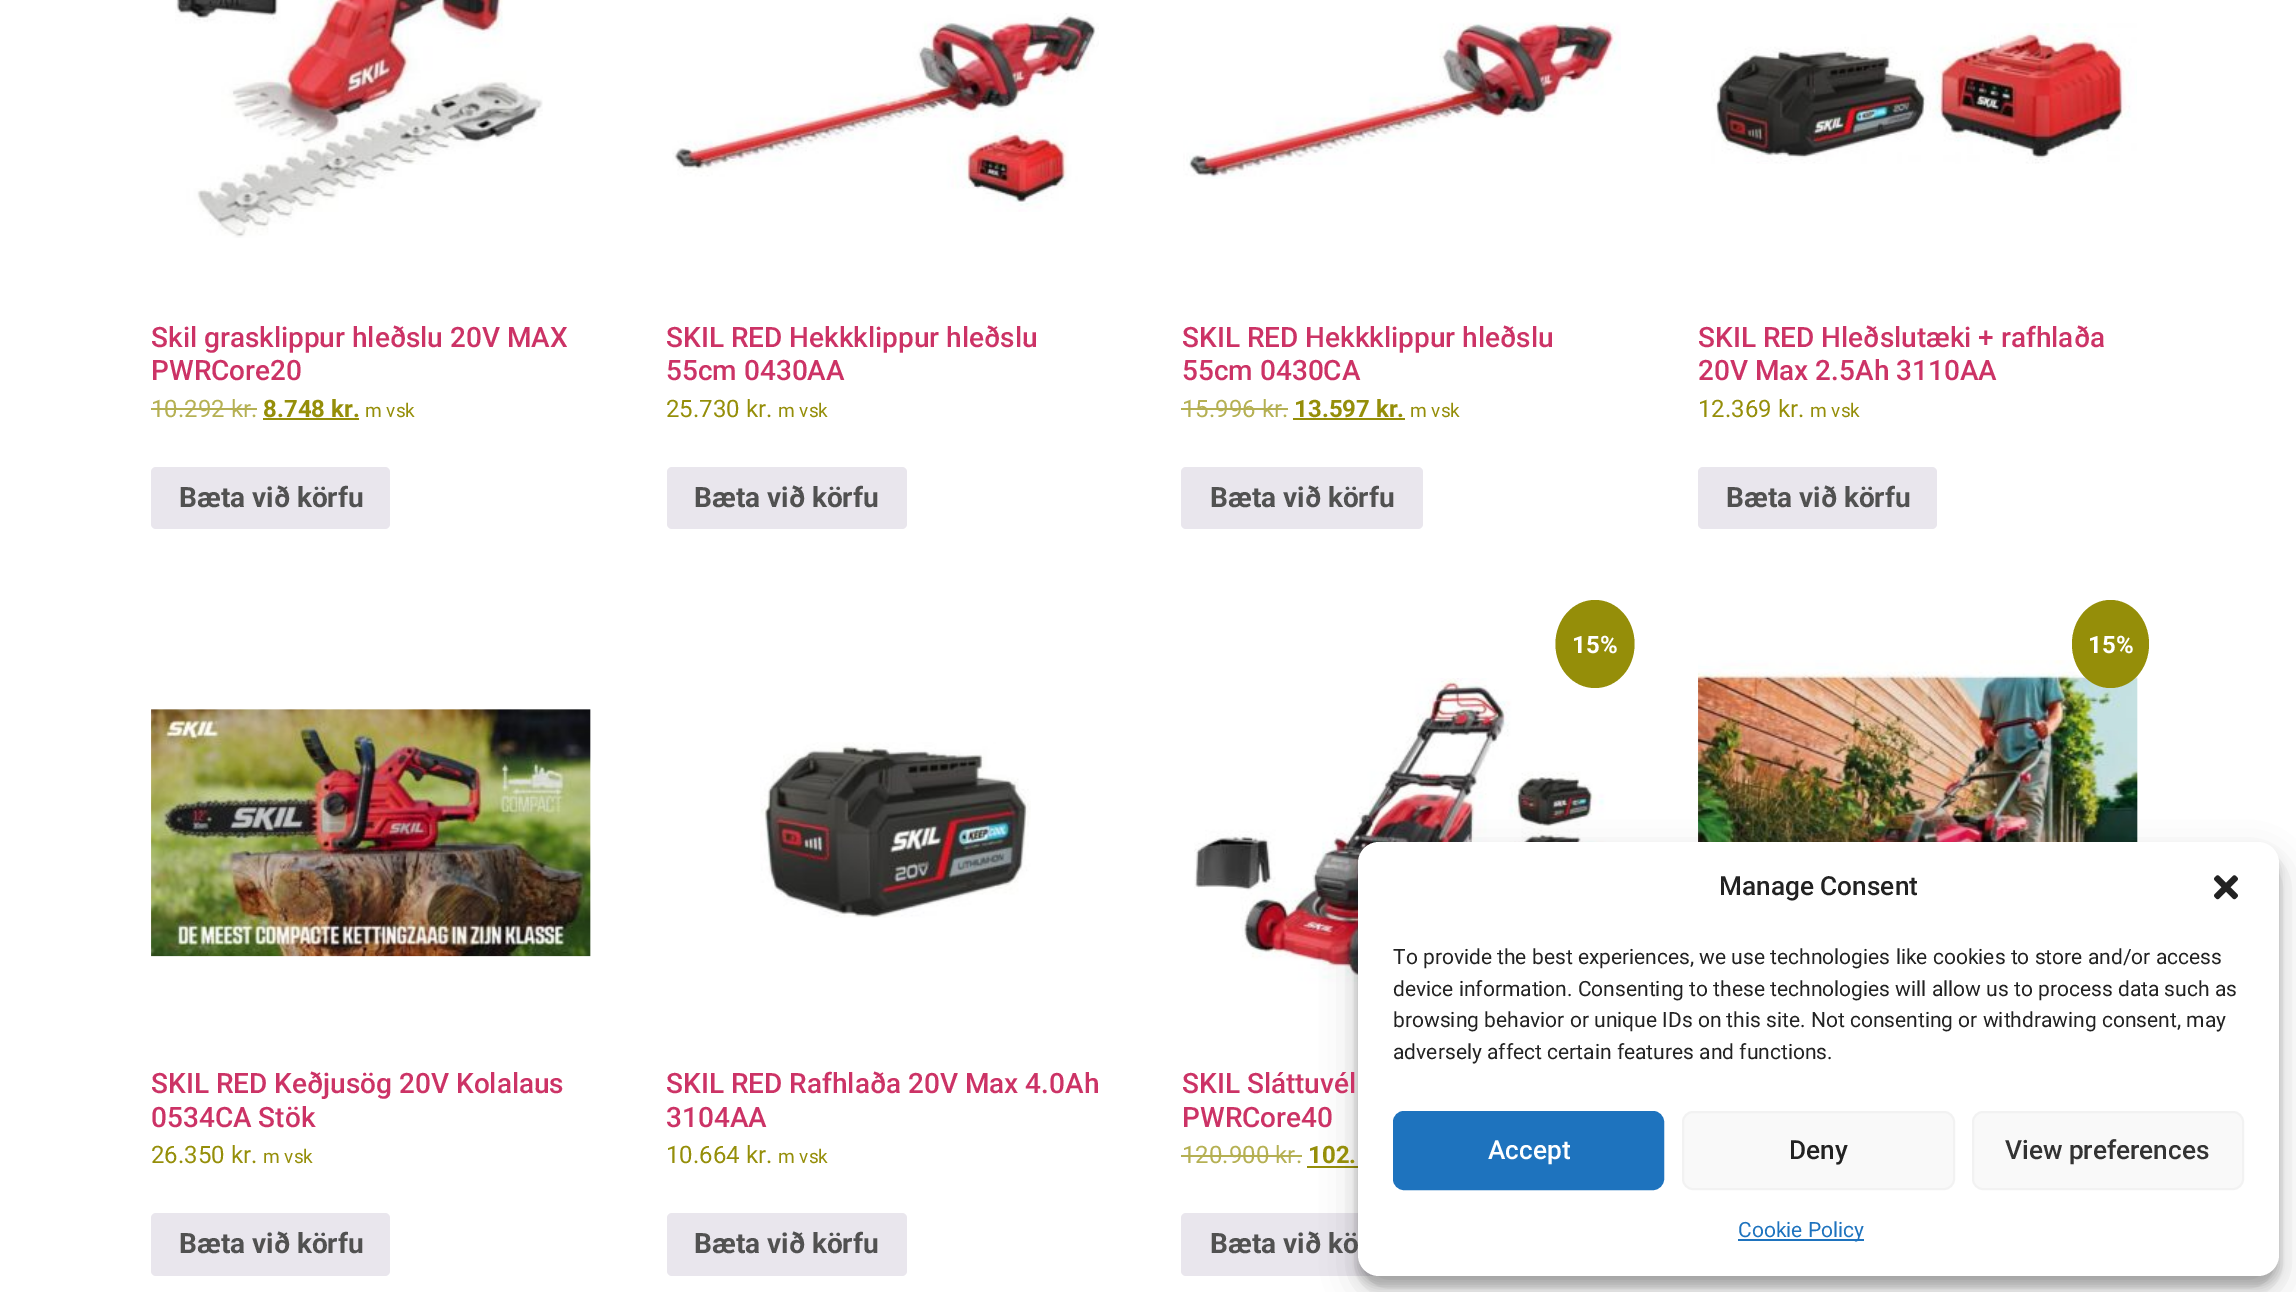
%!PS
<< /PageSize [2296 1292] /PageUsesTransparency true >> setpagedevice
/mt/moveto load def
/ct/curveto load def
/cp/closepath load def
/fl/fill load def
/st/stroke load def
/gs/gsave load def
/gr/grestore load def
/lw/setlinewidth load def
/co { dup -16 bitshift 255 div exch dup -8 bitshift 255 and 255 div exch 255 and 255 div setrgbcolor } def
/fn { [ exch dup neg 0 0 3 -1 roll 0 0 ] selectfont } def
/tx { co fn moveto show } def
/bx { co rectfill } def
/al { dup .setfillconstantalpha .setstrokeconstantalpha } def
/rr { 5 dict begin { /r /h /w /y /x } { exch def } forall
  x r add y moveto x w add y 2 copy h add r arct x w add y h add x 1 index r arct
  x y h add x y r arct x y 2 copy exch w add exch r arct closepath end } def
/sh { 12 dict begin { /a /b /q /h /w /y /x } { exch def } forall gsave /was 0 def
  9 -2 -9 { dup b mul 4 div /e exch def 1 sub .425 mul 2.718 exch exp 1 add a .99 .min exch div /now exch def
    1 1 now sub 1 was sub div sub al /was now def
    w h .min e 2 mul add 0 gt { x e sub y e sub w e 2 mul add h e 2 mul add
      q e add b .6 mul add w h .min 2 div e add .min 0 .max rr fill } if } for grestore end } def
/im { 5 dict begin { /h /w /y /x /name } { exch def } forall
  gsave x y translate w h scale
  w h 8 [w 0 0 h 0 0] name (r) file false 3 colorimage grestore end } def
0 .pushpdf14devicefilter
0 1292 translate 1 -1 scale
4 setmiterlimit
0 0 2296 1292 16#FFFFFF bx
(media/1.raw) 175 0 368 238 im
151 408 106 2 16#B5B053 bx
263 418 96 2 16#958E09 bx
16#E9E6ED co
151 467 239 62 5 rr fl
(media/2.raw) 672 13 427 199 im
667 467 240 62 5 rr fl
(media/3.raw) 1183 22 438 157 im
1181 408 107 2 16#B5B053 bx
1293 418 112 2 16#958E09 bx
16#E9E6ED co
1181 467 242 62 5 rr fl
(media/4.raw) 1711 23 426 141 im
1698 467 239 62 5 rr fl
(media/5.raw) 1194 678 427 306 im
16#958E09 co
1595 600 mt 1617 600 1634.5 619.5 1634.5 644 ct 1634.5 668.5 1617 688 1595 688 ct 1573 688 1555.5 668.5 1555.5 644 ct 1555.5 619.5 1573 600 1595 600 ct cp fl
1181 1155 121 2 16#B5B053 bx
1307 1166 51 2 16#958E09 bx
16#E9E6ED co
1181 1213 242 63 5 rr fl
(media/6.raw) 1698 660 440 182 im
16#958E09 co
2110.5 600 mt 2132 600 2149 619.5 2149 644 ct 2149 668.5 2132 688 2110.5 688 ct 2089 688 2072 668.5 2072 644 ct 2072 619.5 2089 600 2110.5 600 ct cp fl
(media/7.raw) 151 709 440 248 im
16#E9E6ED co
151 1213 239 63 5 rr fl
(media/8.raw) 760 742 271 176 im
667 1213 240 63 5 rr fl
16#000000 co
1358 852 921 434 21 5 .23 sh
1358 859 921 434 21 17.5 .19 sh
16#FFFFFF co
1358 842 921 434 21 rr fl
(media/9.raw) 2214 875 24 25 im
16#1E73BE co
1394 1112 269 77 10 rr gs fl gr
2 lw
st
16#F9F9F9 co
1683 1112 271 77 10 rr gs fl gr
16#F2F2F2 co
st
16#F9F9F9 co
1973 1112 270 77 10 rr gs fl gr
16#F2F2F2 co
st
1738 1239 126 2 16#1E73BE bx
(Skil grasklippur hleðslu 20V MAX) 151 347 /Roboto-Medium 28 16#CC3366 tx
(PWRCore20) 151 380 /Roboto-Medium 28 16#CC3366 tx
(10.292 kr.) 151 417 /Roboto-Regular 24 16#B5B053 tx
(8.748 kr.) 263 417 /Roboto-Bold 24 16#958E09 tx
(m vsk) 365 417 /Roboto-Regular 19 16#958E09 tx
(Bæta við körfu) 179 507 /Roboto-Bold 28 16#515151 tx
(SKIL RED Hekkklippur hleðslu) 666 347 /Roboto-Medium 28 16#CC3366 tx
(55cm 0430AA) 666 380 /Roboto-Medium 28 16#CC3366 tx
(25.730 kr.) 666 417 /Roboto-Regular 24 16#958E09 tx
(m vsk) 778 417 /Roboto-Regular 19 16#958E09 tx
(Bæta við körfu) 694 507 /Roboto-Bold 28 16#515151 tx
(SKIL RED Hekkklippur hleðslu) 1182 347 /Roboto-Medium 28 16#CC3366 tx
(55cm 0430CA) 1182 380 /Roboto-Medium 28 16#CC3366 tx
(15.996 kr.) 1182 417 /Roboto-Regular 24 16#B5B053 tx
(13.597 kr.) 1294 417 /Roboto-Bold 24 16#958E09 tx
(m vsk) 1410 417 /Roboto-Regular 19 16#958E09 tx
(Bæta við körfu) 1210 507 /Roboto-Bold 28 16#515151 tx
(SKIL RED Hleðslutæki + rafhlaða) 1698 347 /Roboto-Medium 28 16#CC3366 tx
(20V Max 2.5Ah 3110AA) 1698 380 /Roboto-Medium 28 16#CC3366 tx
(12.369 kr.) 1698 417 /Roboto-Regular 24 16#958E09 tx
(m vsk) 1810 417 /Roboto-Regular 19 16#958E09 tx
(Bæta við körfu) 1726 507 /Roboto-Bold 28 16#515151 tx
(15%) 1572 653 /Roboto-Bold 24 16#FFFFFF tx
(SKIL Sláttuvél) 1182 1093 /Roboto-Medium 28 16#CC3366 tx
(PWRCore40) 1182 1127 /Roboto-Medium 28 16#CC3366 tx
(120.900 kr.) 1182 1163 /Roboto-Regular 24 16#B5B053 tx
(102.) 1308 1163 /Roboto-Bold 24 16#958E09 tx
(Bæta við kö) 1210 1253 /Roboto-Bold 28 16#515151 tx
(15%) 2088 653 /Roboto-Bold 24 16#FFFFFF tx
(SKIL RED Keðjusög 20V Kolalaus) 151 1093 /Roboto-Medium 28 16#CC3366 tx
(0534CA Stök) 151 1127 /Roboto-Medium 28 16#CC3366 tx
(26.350 kr.) 151 1163 /Roboto-Regular 24 16#958E09 tx
(m vsk) 263 1163 /Roboto-Regular 19 16#958E09 tx
(Bæta við körfu) 179 1253 /Roboto-Bold 28 16#515151 tx
(SKIL RED Rafhlaða 20V Max 4.0Ah) 666 1093 /Roboto-Medium 28 16#CC3366 tx
(3104AA) 666 1127 /Roboto-Medium 28 16#CC3366 tx
(10.664 kr.) 666 1163 /Roboto-Regular 24 16#958E09 tx
(m vsk) 778 1163 /Roboto-Regular 19 16#958E09 tx
(Bæta við körfu) 694 1253 /Roboto-Bold 28 16#515151 tx
(Manage Consent) 1719 895 /Roboto-Medium 26.25 16#222222 tx
(To provide the best experiences, we use technologies like cookies to store and/or access) 1393 964 /Roboto-Regular 21 16#222222 tx
(device information. Consenting to these technologies will allow us to process data such as) 1393 996 /Roboto-Regular 21 16#222222 tx
(browsing behavior or unique IDs on this site. Not consenting or withdrawing consent, may) 1393 1027 /Roboto-Regular 21 16#222222 tx
(adversely affect certain features and functions.) 1393 1059 /Roboto-Regular 21 16#222222 tx
(Accept) 1488 1159 /Roboto-Medium 26.25 16#FFFFFF tx
(Deny) 1789 1159 /Roboto-Medium 26.25 16#222222 tx
(View preferences) 2005 1159 /Roboto-Medium 26.25 16#333333 tx
(Cookie Policy) 1738 1237 /Roboto-Regular 21 16#1E73BE tx
.poppdf14devicefilter showpage
